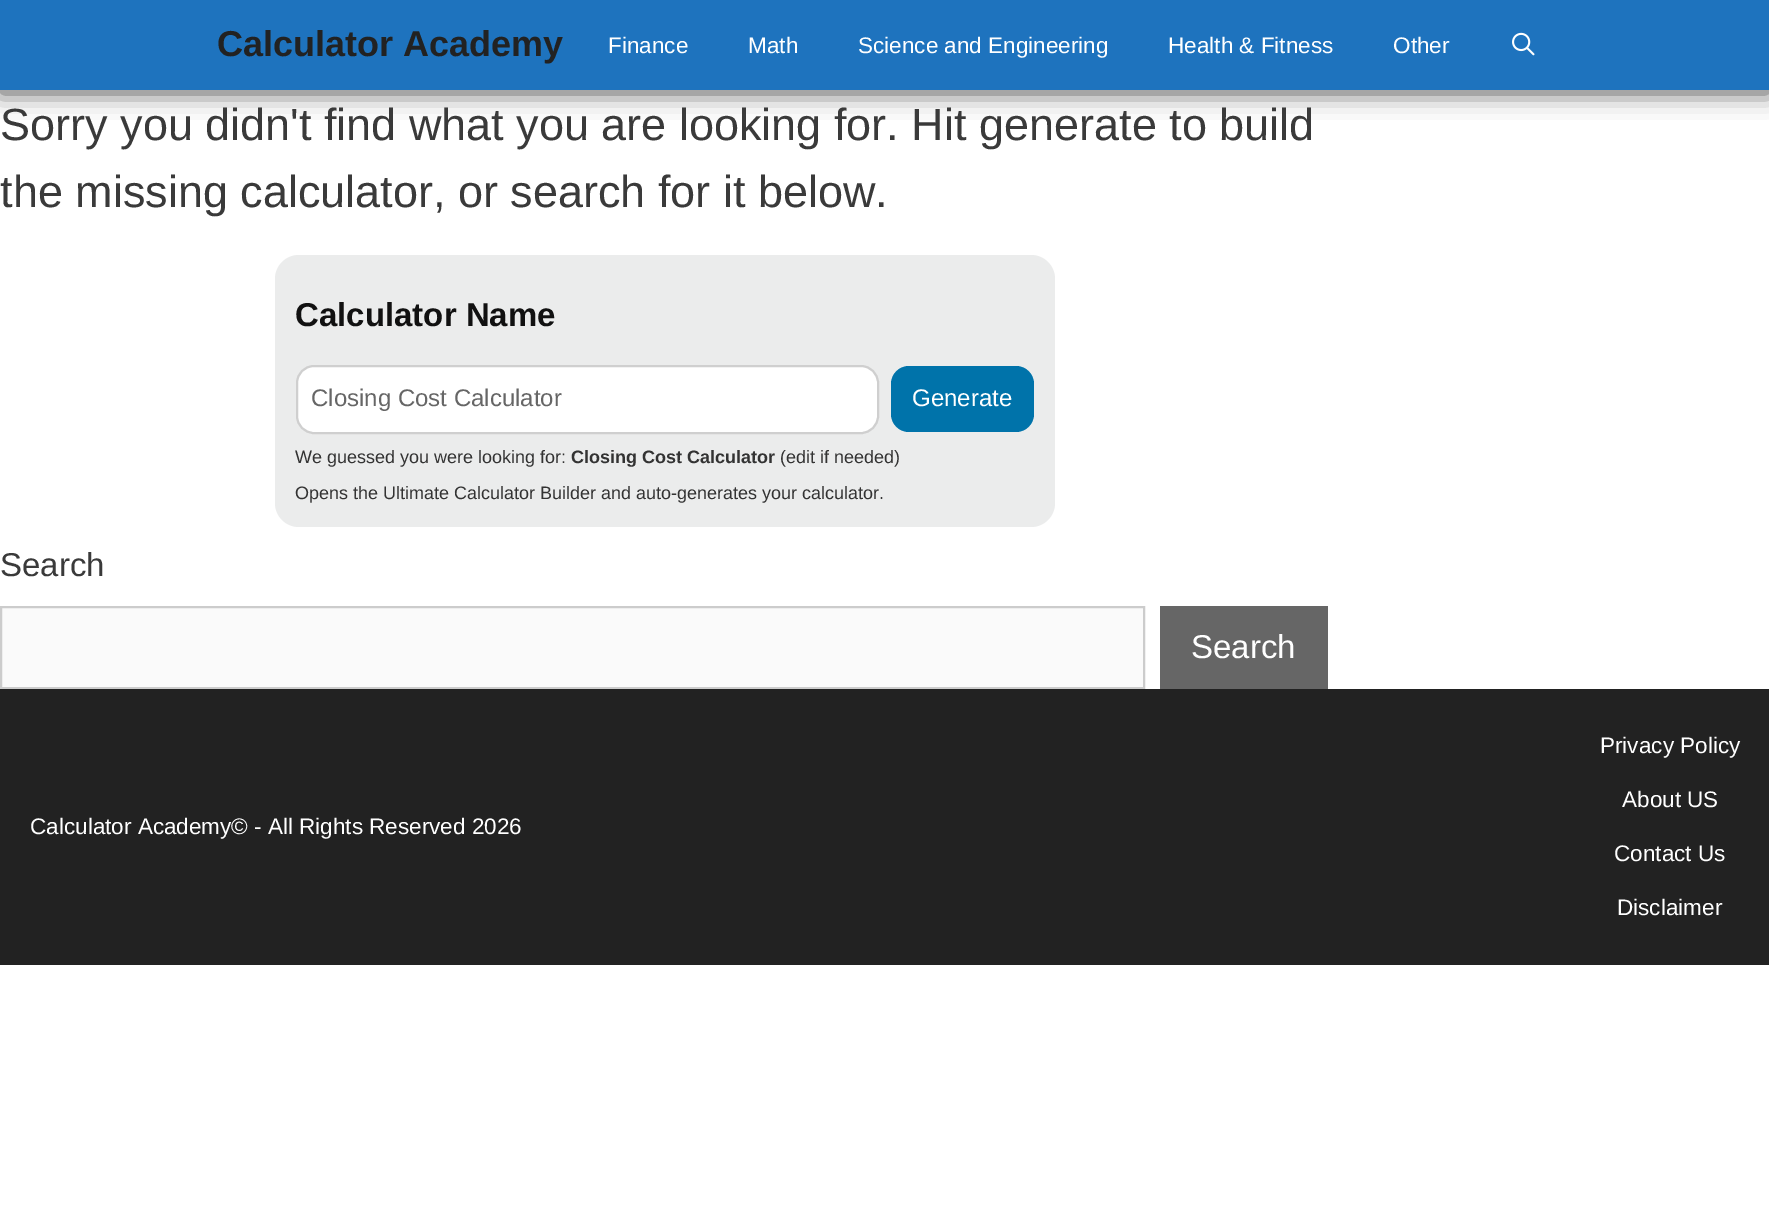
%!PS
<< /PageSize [1769 1213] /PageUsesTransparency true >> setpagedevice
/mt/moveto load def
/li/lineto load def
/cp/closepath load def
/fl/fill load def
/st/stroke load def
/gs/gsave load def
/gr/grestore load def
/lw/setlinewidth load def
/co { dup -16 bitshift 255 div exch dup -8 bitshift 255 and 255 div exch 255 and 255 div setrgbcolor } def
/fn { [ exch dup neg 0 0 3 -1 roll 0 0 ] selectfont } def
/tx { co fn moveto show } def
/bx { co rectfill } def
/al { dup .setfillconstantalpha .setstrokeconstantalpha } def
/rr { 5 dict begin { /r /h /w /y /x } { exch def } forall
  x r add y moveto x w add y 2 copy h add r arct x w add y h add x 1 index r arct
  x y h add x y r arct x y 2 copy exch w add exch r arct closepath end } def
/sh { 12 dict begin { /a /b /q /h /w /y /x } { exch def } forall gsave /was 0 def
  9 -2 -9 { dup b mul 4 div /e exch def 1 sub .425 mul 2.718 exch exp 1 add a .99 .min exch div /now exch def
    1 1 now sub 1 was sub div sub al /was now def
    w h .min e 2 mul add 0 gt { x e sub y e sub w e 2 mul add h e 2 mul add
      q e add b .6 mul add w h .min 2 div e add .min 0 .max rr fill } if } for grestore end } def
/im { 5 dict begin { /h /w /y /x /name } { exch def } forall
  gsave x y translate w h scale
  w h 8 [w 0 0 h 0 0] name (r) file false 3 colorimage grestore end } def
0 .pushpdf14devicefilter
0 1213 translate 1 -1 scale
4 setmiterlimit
0 0 1769 1213 16#FFFFFF bx
16#000000 co
0 3 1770 90 0 12 .7 sh
0 0 1769 90 16#1E73BE bx
(media/1.raw) 1512 32 23 24 im
16#EBECEC co
275 255 780 272 24 rr fl
16#FFFFFF co
297 366 581 67 17 rr gs fl gr
16#CFCFCF co
2 lw
st
16#0073AA co
891 366 143 66 18 rr fl
16#FAFAFA co
1 607 mt 1144 607 li 1144 688 li 1 688 li cp gs fl gr
16#CCCCCC co
st
1160 606 168 83 16#666666 bx
0 689 1769 276 16#222222 bx
(Calculator Academy) 217 56 /LiberationSans-Bold 36 16#222222 tx
(Finance) 608 53 /LiberationSans-Regular 22.5 16#FFFFFF tx
(Math) 748 53 /LiberationSans-Regular 22.5 16#FFFFFF tx
(Science and Engineering) 858 53 /LiberationSans-Regular 22.5 16#FFFFFF tx
(Health & Fitness) 1168 53 /LiberationSans-Regular 22.5 16#FFFFFF tx
(Other) 1393 53 /LiberationSans-Regular 22.5 16#FFFFFF tx
(Sorry you didn't find what you are looking for. Hit generate to build) 0 140 /LiberationSans-Regular 45 16#3A3A3A tx
(the missing calculator, or search for it below.) 0 207 /LiberationSans-Regular 45 16#3A3A3A tx
(Calculator Name) 295 326 /LiberationSans-Bold 33 16#111111 tx
(Closing Cost Calculator) 311 406 /LiberationSans-Regular 24 16#666666 tx
(Generate) 912 406 /LiberationSans-Regular 24 16#FFFFFF tx
(We guessed you were looking for:) 295 463 /LiberationSans-Regular 18 16#333333 tx
(Closing Cost Calculator) 571 463 /LiberationSans-Bold 18 16#333333 tx
(\(edit if needed\)) 780 463 /LiberationSans-Regular 18 16#333333 tx
(Opens the Ultimate Calculator Builder and auto-generates your calculator.) 295 499 /LiberationSans-Regular 18 16#333333 tx
(Search) 0 576 /LiberationSans-Regular 33 16#3A3A3A tx
(Search) 1191 658 /LiberationSans-Regular 33 16#FFFFFF tx
(Calculator Academy© - All Rights Reserved 2026) 30 834 /LiberationSans-Regular 22.5 16#FFFFFF tx
(Privacy Policy) 1600 753 /LiberationSans-Regular 22.5 16#FFFFFF tx
(About US) 1622 807 /LiberationSans-Regular 22.5 16#FFFFFF tx
(Contact Us) 1614 861 /LiberationSans-Regular 22.5 16#FFFFFF tx
(Disclaimer) 1617 915 /LiberationSans-Regular 22.5 16#FFFFFF tx
.poppdf14devicefilter showpage
